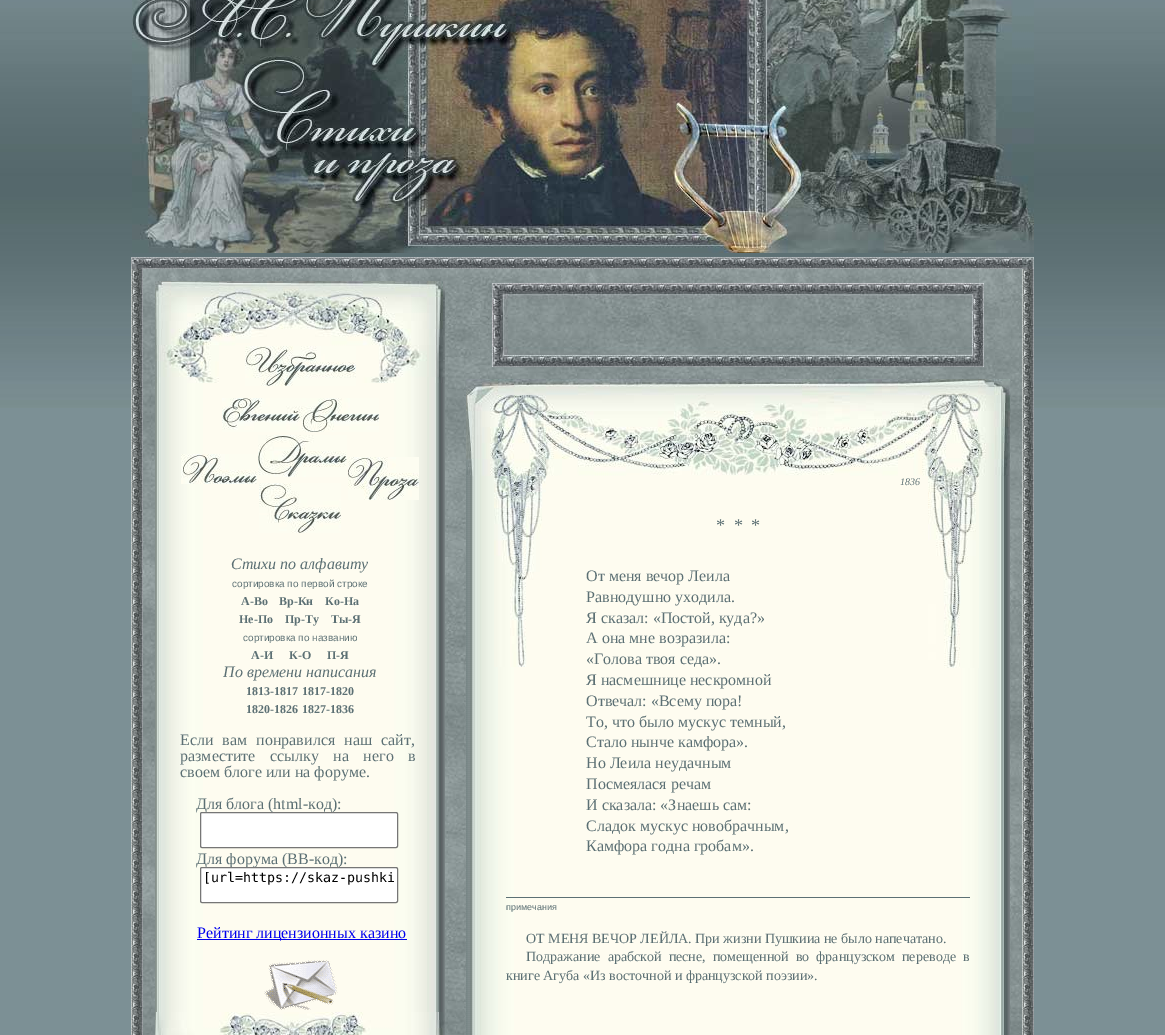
%!PS
<< /PageSize [1165 1035] >> setpagedevice
/mt/moveto load def
/fl/fill load def
/st/stroke load def
/gs/gsave load def
/gr/grestore load def
/co { dup -16 bitshift 255 div exch dup -8 bitshift 255 and 255 div exch 255 and 255 div setrgbcolor } def
/fn { [ exch dup neg 0 0 3 -1 roll 0 0 ] selectfont } def
/tx { co fn moveto show } def
/bx { co rectfill } def
/rr { 5 dict begin { /r /h /w /y /x } { exch def } forall
  x r add y moveto x w add y 2 copy h add r arct x w add y h add x 1 index r arct
  x y h add x y r arct x y 2 copy exch w add exch r arct closepath end } def
/im { 5 dict begin { /h /w /y /x /name } { exch def } forall
  gsave x y translate w h scale
  w h 8 [w 0 0 h 0 0] name (r) file false 3 colorimage grestore end } def
0 1035 translate 1 -1 scale
4 setmiterlimit
0 0 1165 1035 16#7C9095 bx
(media/1.raw) 0 0 1165 408 im
(media/2.raw) 132 0 902 253 im
(media/3.raw) 131 257 12 12 im
(media/4.raw) 143 257 879 12 im
(media/5.raw) 1022 257 12 12 im
(media/6.raw) 131 269 12 766 im
(media/7.raw) 143 269 879 766 im
(media/8.raw) 155 281 290 102 im
(media/10.raw) 155 383 290 629 im
(media/9.raw) 245 346 111 40 im
(media/11.raw) 222 398 157 34 im
(media/12.raw) 181 454 76 30 im
(media/13.raw) 258 435 89 42 im
(media/14.raw) 348 457 71 43 im
(media/15.raw) 259 483 82 50 im
197 939 210 1 16#0000EE bx
(media/16.raw) 264 960 74 50 im
(media/17.raw) 155 1012 290 23 im
(media/18.raw) 492 283 492 84 im
(media/19.raw) 466 379 544 97 im
(media/20.raw) 466 476 544 559 im
(media/21.raw) 494 476 52 191 im
(media/22.raw) 928 476 51 192 im
506 897 464 1 16#5C7074 bx
(media/6.raw) 1022 269 12 766 im
(Стихи по алфавиту) 231 569 /LiberationSerif-Italic 16 16#5C7074 tx
(сортировка по первой строке) 232 587 /LiberationSans-Regular 10 16#5C7074 tx
(А-Во) 241 605 /LiberationSerif-Bold 12 16#5C7074 tx
(Вр-Кн) 279 605 /LiberationSerif-Bold 12 16#5C7074 tx
(Ко-На) 325 605 /LiberationSerif-Bold 12 16#5C7074 tx
(Не-По) 239 623 /LiberationSerif-Bold 12 16#5C7074 tx
(Пр-Ту) 285 623 /LiberationSerif-Bold 12 16#5C7074 tx
(Ты-Я) 331 623 /LiberationSerif-Bold 12 16#5C7074 tx
(сортировка по названию) 243 641 /LiberationSans-Regular 10 16#5C7074 tx
(А-И) 251 659 /LiberationSerif-Bold 12 16#5C7074 tx
(К-О) 289 659 /LiberationSerif-Bold 12 16#5C7074 tx
(П-Я) 327 659 /LiberationSerif-Bold 12 16#5C7074 tx
(По времени написания) 223 677 /LiberationSerif-Italic 16 16#5C7074 tx
(1813-1817) 246 695 /LiberationSerif-Bold 12 16#5C7074 tx
(1817-1820) 302 695 /LiberationSerif-Bold 12 16#5C7074 tx
(1820-1826) 246 713 /LiberationSerif-Bold 12 16#5C7074 tx
(1827-1836) 302 713 /LiberationSerif-Bold 12 16#5C7074 tx
/LiberationSerif-Regular 16 fn
180 745 mt 5 0 32 (Если вам понравился наш сайт,) widthshow
180 761 mt 10.5 0 32 (разместите ссылку на него в) widthshow
(своем блоге или на форуме.) 180 777 /LiberationSerif-Regular 16 16#5C7074 tx
(Для блога \(html-код\):) 196 809 /LiberationSerif-Regular 16 16#5C7074 tx
16#FFFFFF co
200.5 812.5 197 35 1.5 rr gs fl gr
16#767676 co
st
(Для форума \(ВВ-код\):) 196 864 /LiberationSerif-Regular 16 16#5C7074 tx
16#FFFFFF co
200.5 867.5 197 35 1.5 rr gs fl gr
16#767676 co
st
([url=https://skaz-pushki) 203 882 /DejaVuSansMono-Regular 13.3 16#000000 tx
(Рейтинг лицензионных казино) 197 938 /LiberationSerif-Regular 16 16#0000EE tx
(1836) 900 485 /LiberationSerif-Italic 10 16#5C7074 tx
/LiberationSerif-Regular 18 fn
716 531 mt 2 0 (* * *) ashow
(От меня вечор Леила) 586 581 /LiberationSerif-Regular 16 16#5C7074 tx
(Равнодушно уходила.) 586 602 /LiberationSerif-Regular 16 16#5C7074 tx
(Я сказал: «Постой, куда?») 586 623 /LiberationSerif-Regular 16 16#5C7074 tx
(А она мне возразила:) 586 643 /LiberationSerif-Regular 16 16#5C7074 tx
(«Голова твоя седа».) 586 664 /LiberationSerif-Regular 16 16#5C7074 tx
(Я насмешнице нескромной) 586 685 /LiberationSerif-Regular 16 16#5C7074 tx
(Отвечал: «Всему пора!) 586 706 /LiberationSerif-Regular 16 16#5C7074 tx
(То, что было мускус темный,) 586 727 /LiberationSerif-Regular 16 16#5C7074 tx
(Стало нынче камфора».) 586 747 /LiberationSerif-Regular 16 16#5C7074 tx
(Но Леила неудачным) 586 768 /LiberationSerif-Regular 16 16#5C7074 tx
(Посмеялася речам) 586 789 /LiberationSerif-Regular 16 16#5C7074 tx
(И сказала: «Знаешь сам:) 586 810 /LiberationSerif-Regular 16 16#5C7074 tx
(Сладок мускус новобрачным,) 586 831 /LiberationSerif-Regular 16 16#5C7074 tx
(Камфора годна гробам».) 586 851 /LiberationSerif-Regular 16 16#5C7074 tx
(примечания) 506 910 /LiberationSans-Regular 9 16#5C7074 tx
(ОТ МЕНЯ ВЕЧОР ЛЕЙЛА. При жизни Пушкииа не было напечатано.) 526 943 /LiberationSerif-Regular 14 16#5C7074 tx
526 961 mt 3.5 0 32 (Подражание арабской песне, помещенной во французском переводе в) widthshow
(книге Агуба «Из восточной и французской поэзии».) 506 980 /LiberationSerif-Regular 14 16#5C7074 tx
showpage
